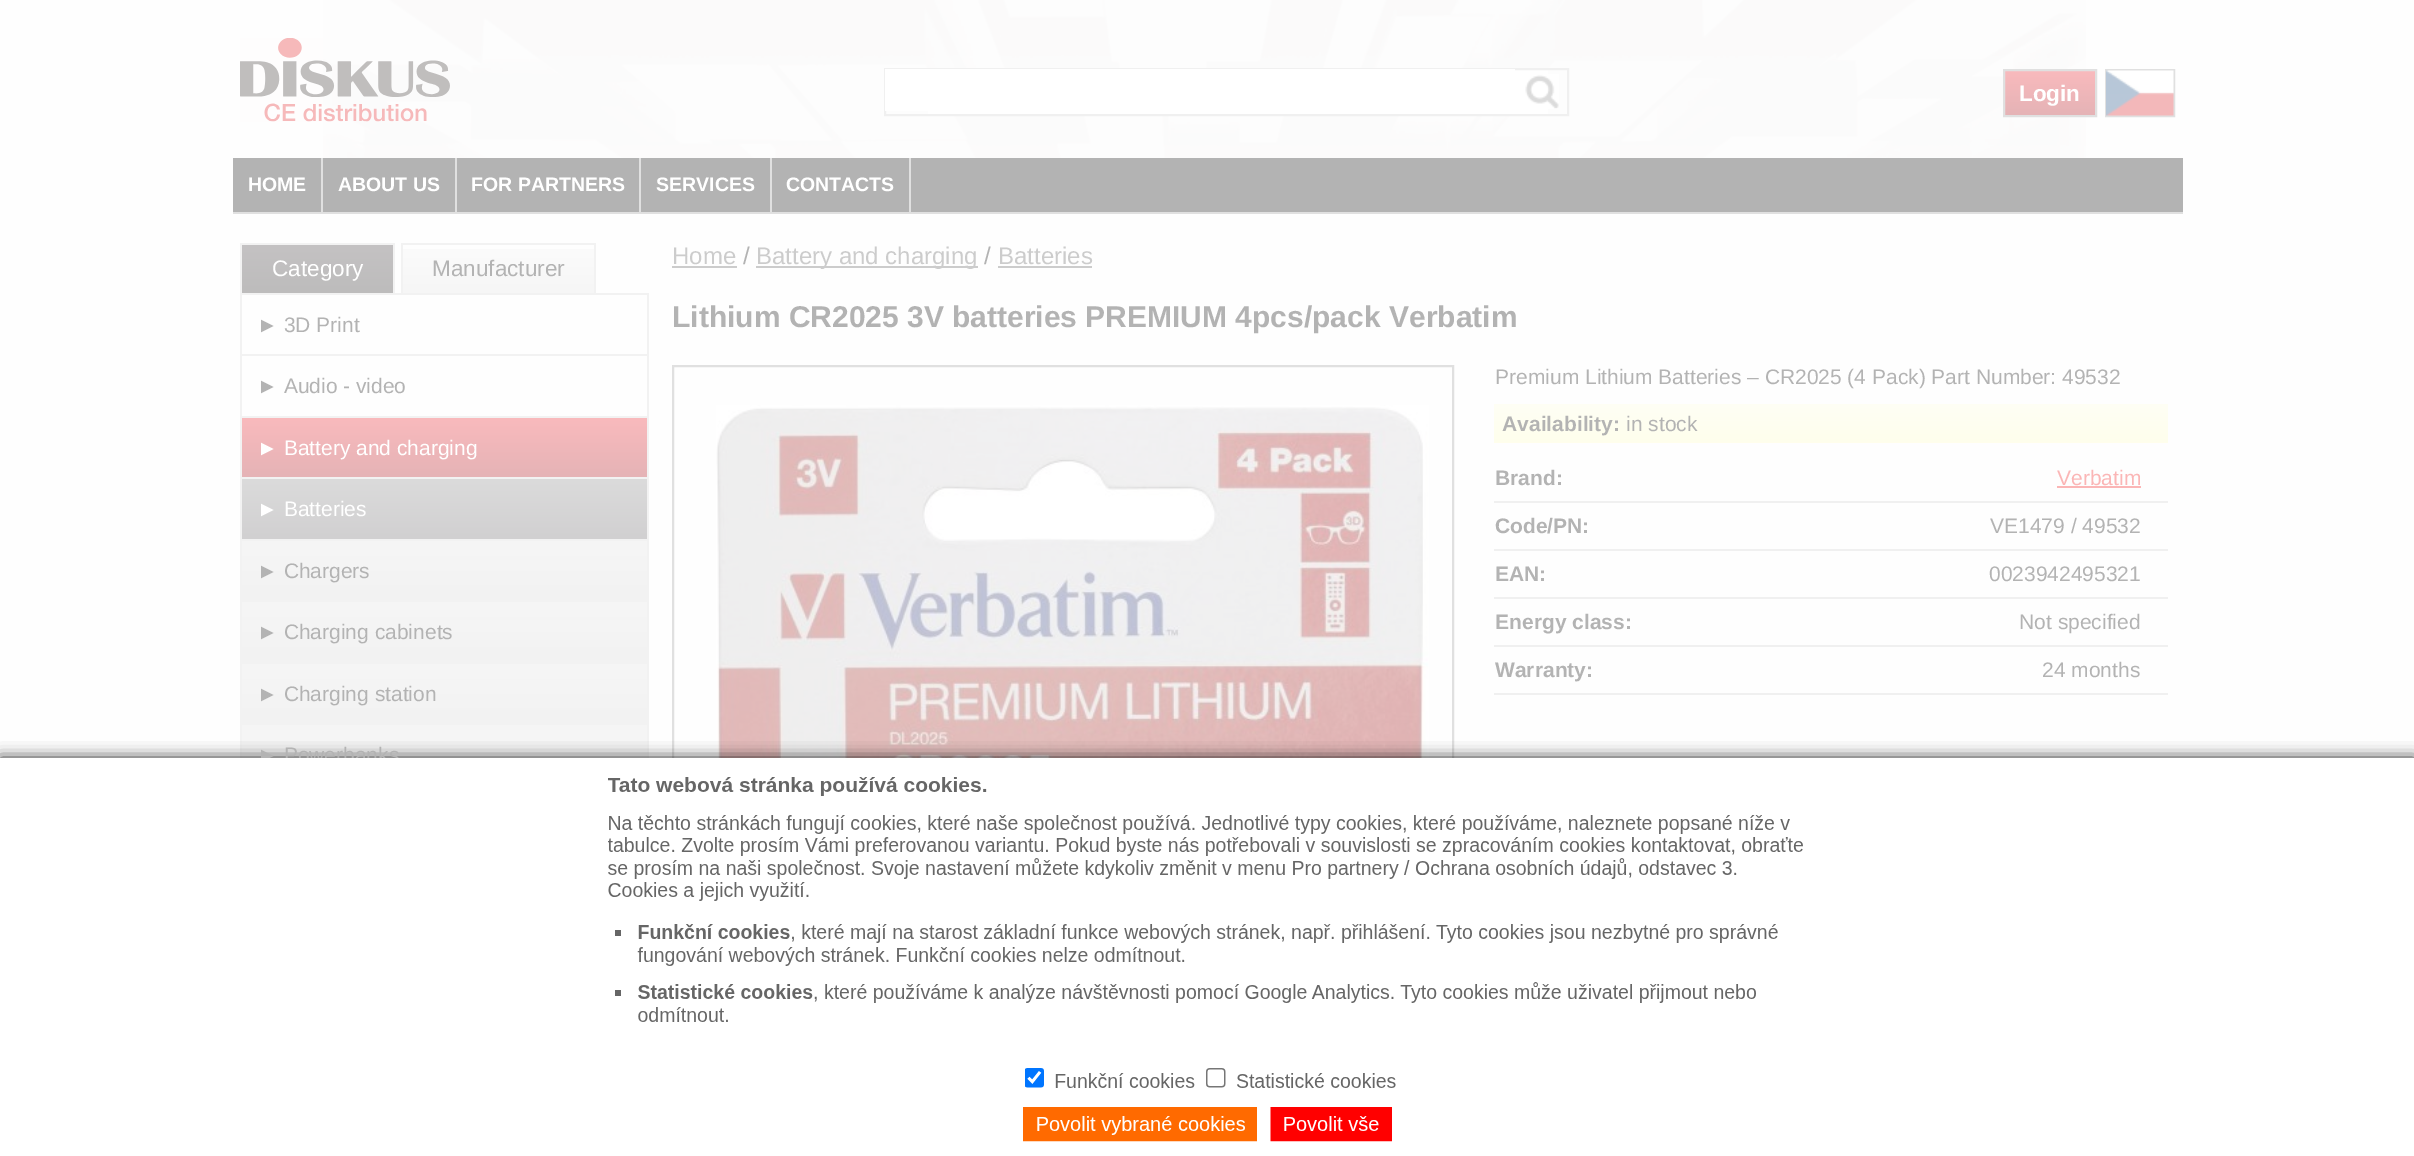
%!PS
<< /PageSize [2414 1156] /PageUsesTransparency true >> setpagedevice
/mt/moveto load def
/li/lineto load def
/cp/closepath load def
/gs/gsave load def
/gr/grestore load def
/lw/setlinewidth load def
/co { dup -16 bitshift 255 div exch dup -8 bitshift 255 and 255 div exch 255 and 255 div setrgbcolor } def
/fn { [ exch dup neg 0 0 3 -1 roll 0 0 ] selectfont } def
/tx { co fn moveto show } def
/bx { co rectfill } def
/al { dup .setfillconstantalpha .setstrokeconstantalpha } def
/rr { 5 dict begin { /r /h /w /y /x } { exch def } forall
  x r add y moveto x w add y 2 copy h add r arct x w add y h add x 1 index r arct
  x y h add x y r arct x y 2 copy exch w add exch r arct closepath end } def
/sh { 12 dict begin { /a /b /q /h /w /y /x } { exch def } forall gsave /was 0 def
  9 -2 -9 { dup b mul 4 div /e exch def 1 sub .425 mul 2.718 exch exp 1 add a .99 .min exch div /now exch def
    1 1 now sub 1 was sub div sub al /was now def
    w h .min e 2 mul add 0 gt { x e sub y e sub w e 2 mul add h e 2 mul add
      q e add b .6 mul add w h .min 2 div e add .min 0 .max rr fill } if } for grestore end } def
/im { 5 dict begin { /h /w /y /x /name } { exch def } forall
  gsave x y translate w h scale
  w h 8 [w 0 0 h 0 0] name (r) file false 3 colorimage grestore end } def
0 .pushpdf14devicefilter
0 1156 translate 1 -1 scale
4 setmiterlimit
0 0 2414 1156 16#FEFEFE bx
(media/1.raw) 323 0 1763 158 im
(media/2.raw) 240 38 210 84 im
928 70 620 44 16#FFFFFF bx
16#F0F0F0 co
2 lw
885 69 683 46 rectstroke
885 69 630 42 16#FFFFFF bx
(media/3.raw) 1525 74 34 35 im
gs 2005 71 mt 2095 71 li 2095 115 li 2005 115 li cp clip newpath
<< /ShadingType 2 /ColorSpace /DeviceRGB /Coords [2050 71 2050 116] /Extend [true true] /Function << /FunctionType 2 /Domain [0 1] /C0 [.976 .729 .741] /C1 [.898 .702 .714] /N 1 >> >> shfill gr
16#E0E0E0 co
2004 70 92 46 rectstroke
2106 70 68 46 rectstroke
(media/4.raw) 2106 70 68 46 im
233 158 1950 54 16#B3B3B3 bx
233 212 1950 2 16#E0E0E0 bx
321 158 2 54 16#E0E0E0 bx
455 158 2 54 16#E0E0E0 bx
639 158 2 54 16#E0E0E0 bx
770 158 2 54 16#E0E0E0 bx
909 158 2 54 16#E0E0E0 bx
gs 242 245 mt 393 245 li 393 293 li 242 293 li cp clip newpath
<< /ShadingType 2 /ColorSpace /DeviceRGB /Coords [317 245 317 293] /Extend [true true] /Function << /FunctionType 2 /Domain [0 1] /C0 [.769 .761 .765] /C1 [.741 .737 .737] /N 1 >> >> shfill gr
240 243 155 2 16#F2F2F2 bx
393 243 2 50 16#F2F2F2 bx
240 243 2 50 16#F2F2F2 bx
gs 403 249 mt 594 249 li 594 293 li 403 293 li cp clip newpath
<< /ShadingType 2 /ColorSpace /DeviceRGB /Coords [498 245 498 293] /Extend [true true] /Function << /FunctionType 2 /Domain [0 1] /C0 [.988 .988 .988] /C1 [.965 .965 .965] /N 1 >> >> shfill gr
401 243 195 2 16#F2F2F2 bx
594 243 2 50 16#F2F2F2 bx
401 243 2 50 16#F2F2F2 bx
240 293 408 2 16#F2F2F2 bx
647 293 2 61 16#F2F2F2 bx
240 293 2 61 16#F2F2F2 bx
240 354 408 2 16#F2F2F2 bx
647 354 2 62 16#F2F2F2 bx
240 354 2 62 16#F2F2F2 bx
gs 242 418 mt 647 418 li 647 477 li 242 477 li cp clip newpath
<< /ShadingType 2 /ColorSpace /DeviceRGB /Coords [444 417 444 477] /Extend [true true] /Function << /FunctionType 2 /Domain [0 1] /C0 [.976 .729 .741] /C1 [.898 .702 .714] /N 1 >> >> shfill gr
240 416 408 2 16#F2F2F2 bx
647 416 2 61 16#F2F2F2 bx
240 416 2 61 16#F2F2F2 bx
gs 242 479 mt 647 479 li 647 539 li 242 539 li cp clip newpath
<< /ShadingType 2 /ColorSpace /DeviceRGB /Coords [444 479 444 539] /Extend [true true] /Function << /FunctionType 2 /Domain [0 1] /C0 [.859 .859 .859] /C1 [.82 .816 .82] /N 1 >> >> shfill gr
240 477 408 2 16#F2F2F2 bx
647 477 2 62 16#F2F2F2 bx
240 477 2 62 16#F2F2F2 bx
gs 242 541 mt 647 541 li 647 600 li 242 600 li cp clip newpath
<< /ShadingType 2 /ColorSpace /DeviceRGB /Coords [444 540 444 600] /Extend [true true] /Function << /FunctionType 2 /Domain [0 1] /C0 [.965 .965 .965] /C1 [.949 .949 .949] /N 1 >> >> shfill gr
240 539 408 2 16#F2F2F2 bx
647 539 2 61 16#F2F2F2 bx
240 539 2 61 16#F2F2F2 bx
gs 240 600 mt 648 600 li 648 602 li 240 602 li cp clip newpath
<< /ShadingType 2 /ColorSpace /DeviceRGB /Coords [444 542 444 602] /Extend [true true] /Function << /FunctionType 2 /Domain [0 1] /C0 [.965 .965 .965] /C1 [.949 .949 .949] /N 1 >> >> shfill gr
gs 242 602 mt 647 602 li 647 662 li 242 662 li cp clip newpath
<< /ShadingType 2 /ColorSpace /DeviceRGB /Coords [444 602 444 662] /Extend [true true] /Function << /FunctionType 2 /Domain [0 1] /C0 [.965 .965 .965] /C1 [.949 .949 .949] /N 1 >> >> shfill gr
647 600 2 62 16#F2F2F2 bx
240 600 2 62 16#F2F2F2 bx
gs 242 664 mt 647 664 li 647 723 li 242 723 li cp clip newpath
<< /ShadingType 2 /ColorSpace /DeviceRGB /Coords [444 663 444 723] /Extend [true true] /Function << /FunctionType 2 /Domain [0 1] /C0 [.965 .965 .965] /C1 [.949 .949 .949] /N 1 >> >> shfill gr
240 662 408 2 16#F2F2F2 bx
647 662 2 61 16#F2F2F2 bx
240 662 2 61 16#F2F2F2 bx
gs 240 723 mt 648 723 li 648 725 li 240 725 li cp clip newpath
<< /ShadingType 2 /ColorSpace /DeviceRGB /Coords [444 665 444 725] /Extend [true true] /Function << /FunctionType 2 /Domain [0 1] /C0 [.965 .965 .965] /C1 [.949 .949 .949] /N 1 >> >> shfill gr
gs 242 725 mt 647 725 li 647 758 li 242 758 li cp clip newpath
<< /ShadingType 2 /ColorSpace /DeviceRGB /Coords [444 725 444 785] /Extend [true true] /Function << /FunctionType 2 /Domain [0 1] /C0 [.965 .965 .965] /C1 [.949 .949 .949] /N 1 >> >> shfill gr
647 723 2 35 16#F2F2F2 bx
240 723 2 35 16#F2F2F2 bx
672 266 65 2 16#CCCCCC bx
756 266 222 2 16#CCCCCC bx
998 266 94 2 16#CCCCCC bx
16#E0E0E0 co
673 366 780 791 rectstroke
(media/5.raw) 716 405 713 353 im
gs 1494 404 mt 2168 404 li 2168 443 li 1494 443 li cp clip newpath
<< /ShadingType 2 /ColorSpace /DeviceRGB /Coords [1831 404 1831 443] /Extend [true true] /Function << /FunctionType 2 /Domain [0 1] /C0 [.996 .996 .961] /C1 [1 .996 .925] /N 1 >> >> shfill gr
2057 486 84 2 16#FBB6B6 bx
1494 501 674 2 16#F0F0F0 bx
1494 549 674 2 16#F0F0F0 bx
1494 597 674 2 16#F0F0F0 bx
1494 645 674 2 16#F0F0F0 bx
1494 693 674 2 16#F0F0F0 bx
16#000000 co
0 758 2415 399 0 7.5 .8 sh
(Login) 2019 101 /LiberationSans-Bold 22.5 16#FFFFFF tx
(HOME) 248 191 /LiberationSans-Bold 19.5 16#FFFFFF tx
(ABOUT US) 338 191 /LiberationSans-Bold 19.5 16#FFFFFF tx
(FOR PARTNERS) 471 191 /LiberationSans-Bold 19.5 16#FFFFFF tx
(SERVICES) 656 191 /LiberationSans-Bold 19.5 16#FFFFFF tx
(CONTACTS) 786 191 /LiberationSans-Bold 19.5 16#FFFFFF tx
(Category) 272 276 /LiberationSans-Regular 22.5 16#FFFFFF tx
(Manufacturer) 432 276 /LiberationSans-Regular 22.5 16#B3B3B3 tx
(► 3D Print) 257 332 /LiberationSans-Regular 21 16#B3B3B3 tx
(► Audio - video) 257 393 /LiberationSans-Regular 21 16#B3B3B3 tx
(► Battery and charging) 257 455 /LiberationSans-Regular 21 16#FFFFFF tx
(► Batteries) 257 516 /LiberationSans-Regular 21 16#FFFFFF tx
(► Chargers) 257 578 /LiberationSans-Regular 21 16#B3B3B3 tx
(► Charging cabinets) 257 639 /LiberationSans-Regular 21 16#B3B3B3 tx
(► Charging station) 257 701 /LiberationSans-Regular 21 16#B3B3B3 tx
(► Powerbanks) 257 762 /LiberationSans-Regular 21 16#B3B3B3 tx
(Home) 672 264 /LiberationSans-Regular 24 16#CCCCCC tx
(/) 743 264 /LiberationSans-Regular 24 16#B3B3B3 tx
(Battery and charging) 756 264 /LiberationSans-Regular 24 16#CCCCCC tx
(/) 984 264 /LiberationSans-Regular 24 16#B3B3B3 tx
(Batteries) 998 264 /LiberationSans-Regular 24 16#CCCCCC tx
(Lithium CR2025 3V batteries PREMIUM 4pcs/pack Verbatim) 672 327 /LiberationSans-Bold 30 16#B3B3B3 tx
(Premium Lithium Batteries – CR2025 \(4 Pack\) Part Number: 49532) 1495 384 /LiberationSans-Regular 21 16#B3B3B3 tx
(Availability:) 1502 431 /LiberationSans-Bold 21 16#B3B3B3 tx
(in stock) 1626 431 /LiberationSans-Regular 21 16#B3B3B3 tx
(Brand:) 1495 485 /LiberationSans-Bold 21 16#B3B3B3 tx
(Verbatim) 2057 485 /LiberationSans-Regular 21 16#FBB6B6 tx
(Code/PN:) 1495 533 /LiberationSans-Bold 21 16#B3B3B3 tx
(VE1479 / 49532) 1990 533 /LiberationSans-Regular 21 16#B3B3B3 tx
(EAN:) 1495 581 /LiberationSans-Bold 21 16#B3B3B3 tx
(0023942495321) 1989 581 /LiberationSans-Regular 21 16#B3B3B3 tx
(Energy class:) 1495 629 /LiberationSans-Bold 21 16#B3B3B3 tx
(Not specified) 2019 629 /LiberationSans-Regular 21 16#B3B3B3 tx
(Warranty:) 1495 677 /LiberationSans-Bold 21 16#B3B3B3 tx
(24 months) 2042 677 /LiberationSans-Regular 21 16#B3B3B3 tx
0 758 2414 398 16#FFFFFF bx
(media/6.raw) 608 777 1195 365 im
.poppdf14devicefilter showpage
